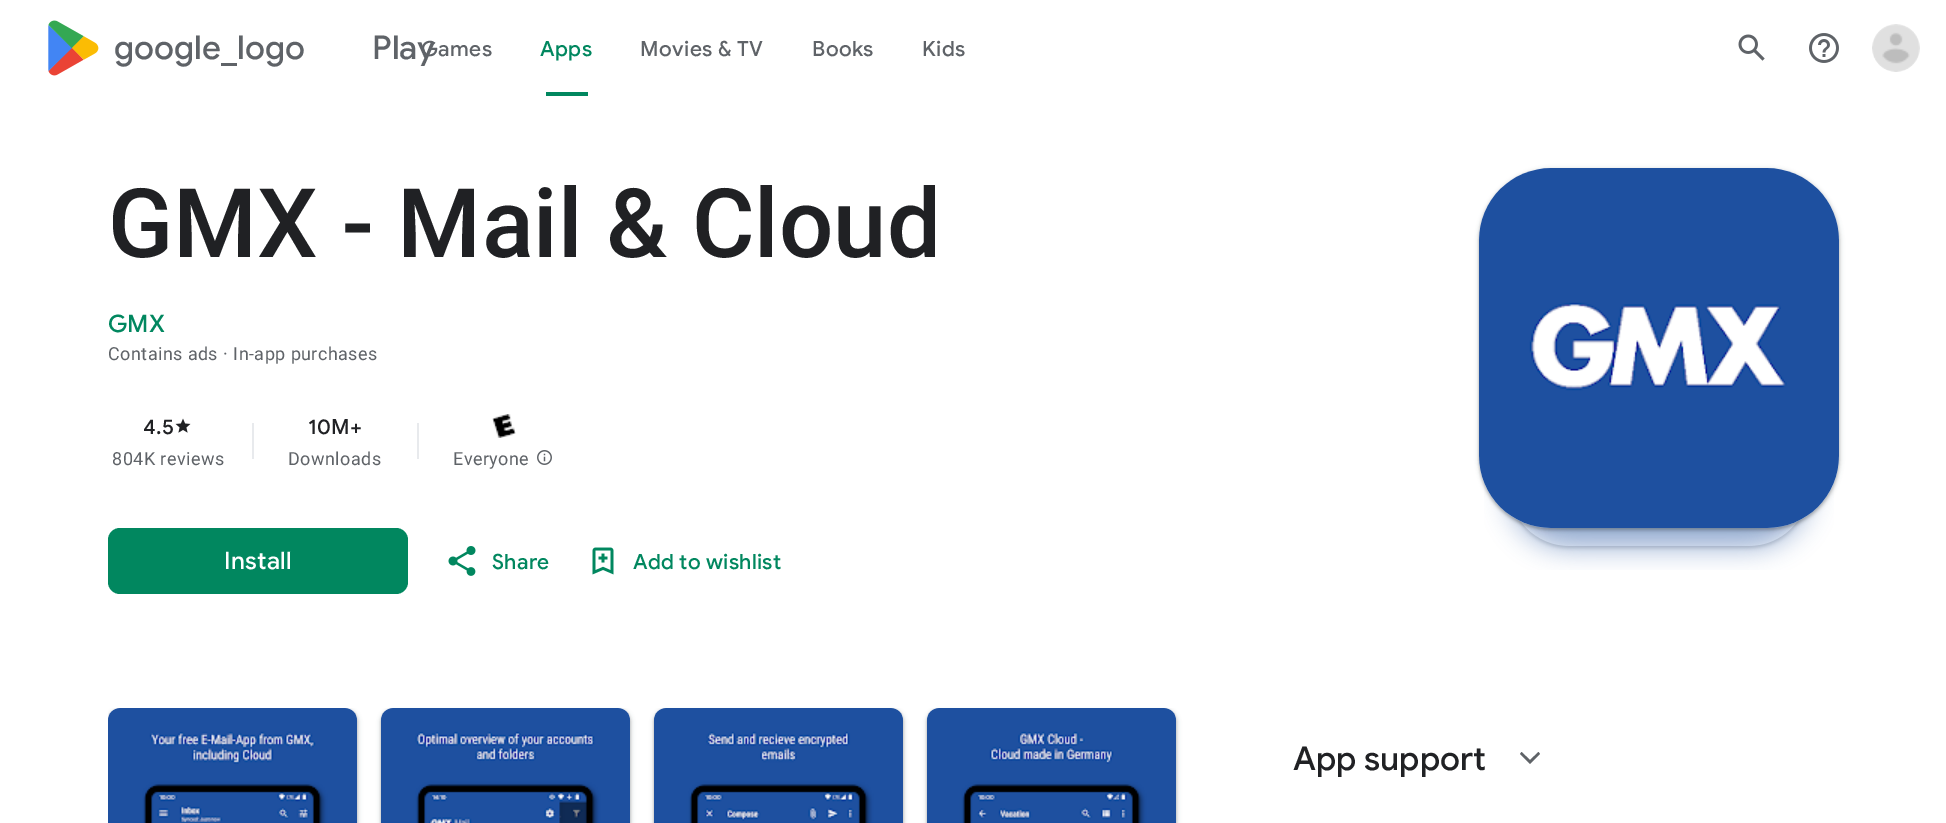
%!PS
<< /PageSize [1946 823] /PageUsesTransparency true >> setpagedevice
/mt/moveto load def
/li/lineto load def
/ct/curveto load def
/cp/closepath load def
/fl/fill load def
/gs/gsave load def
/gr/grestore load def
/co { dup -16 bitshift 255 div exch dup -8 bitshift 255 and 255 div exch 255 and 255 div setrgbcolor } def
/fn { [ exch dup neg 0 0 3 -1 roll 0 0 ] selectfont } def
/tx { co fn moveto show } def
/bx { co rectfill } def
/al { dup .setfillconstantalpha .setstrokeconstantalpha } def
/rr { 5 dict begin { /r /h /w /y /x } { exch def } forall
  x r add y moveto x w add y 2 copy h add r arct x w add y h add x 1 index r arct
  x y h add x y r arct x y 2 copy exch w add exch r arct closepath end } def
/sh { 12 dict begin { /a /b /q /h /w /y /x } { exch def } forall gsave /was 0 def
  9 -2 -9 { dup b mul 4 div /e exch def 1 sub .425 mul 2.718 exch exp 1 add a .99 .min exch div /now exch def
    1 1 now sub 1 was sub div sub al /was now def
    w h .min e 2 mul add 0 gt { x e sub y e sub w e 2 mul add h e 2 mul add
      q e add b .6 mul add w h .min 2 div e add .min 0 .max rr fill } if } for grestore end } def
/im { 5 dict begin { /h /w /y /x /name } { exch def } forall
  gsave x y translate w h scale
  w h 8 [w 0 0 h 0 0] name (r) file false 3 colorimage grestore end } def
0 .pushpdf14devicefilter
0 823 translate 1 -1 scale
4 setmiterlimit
0 0 1946 823 16#FFFFFF bx
(media/1.raw) 48 20 51 56 im
546 92 42 4 16#01875F bx
(media/2.raw) 1738 34 27 27 im
(media/3.raw) 1809 33 30 30 im
(media/4.raw) 1872 24 48 48 im
(media/5.raw) 175 418 16 15 im
252 423 2 36 16#E8EAED bx
417 423 2 36 16#E8EAED bx
(media/6.raw) 492 414 24 24 im
(media/7.raw) 537 450 15 15 im
gs
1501 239 mt 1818 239 li 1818 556 li 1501 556 li cp 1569 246 mt 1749 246 li 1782 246 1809 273 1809 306 ct 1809 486 li 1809 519 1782 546 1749 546 ct 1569 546 li 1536 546 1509 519 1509 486 ct 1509 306 li 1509 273 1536 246 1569 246 ct cp eoclip newpath
16#9EA0A1 co
1508 246 303 303 62 2 .15 sh
gr
gs
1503 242 mt 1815 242 li 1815 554 li 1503 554 li cp 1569 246 mt 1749 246 li 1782 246 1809 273 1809 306 ct 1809 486 li 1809 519 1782 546 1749 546 ct 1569 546 li 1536 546 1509 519 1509 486 ct 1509 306 li 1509 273 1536 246 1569 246 ct cp eoclip newpath
16#9EA0A1 co
1509 248 300 300 60 1.5 .3 sh
gr
(media/9.raw) 1485 484 348 86 im
16#3C4043 co
1478 168 363 363 74 2 .15 sh
1479 170 360 360 72 1.5 .3 sh
(media/8.raw) 1479 168 360 360 im
16#01875F co
108 528 300 66 12 rr fl
(media/10.raw) 448 546 28 30 im
(media/11.raw) 592 547 22 28 im
gs
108 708 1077 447 rectclip
16#3C4043 co
107 708 252 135 14 2 .15 sh
108 710 249 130 12 1.5 .3 sh
gr
(media/12.raw) 108 708 249 115 im
gs
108 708 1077 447 rectclip
16#3C4043 co
380 708 252 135 14 2 .15 sh
gr
16#3C4043 co
381 710 249 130 12 1.5 .3 sh
(media/13.raw) 381 708 249 115 im
gs
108 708 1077 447 rectclip
653 708 252 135 14 2 .15 sh
gr
654 710 249 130 12 1.5 .3 sh
(media/14.raw) 654 708 249 115 im
gs
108 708 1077 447 rectclip
926 708 252 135 14 2 .15 sh
gr
927 710 249 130 12 1.5 .3 sh
(media/15.raw) 927 708 249 115 im
16#5F6368 co
1521.5 752 mt 1520 754 li 1530 764 li 1540 754 li 1538.5 752 li 1530 760 li cp fl
/GoogleSans-Medium 33 fn
114 59 mt 82 0 32 (google_logo) widthshow
372 59 mt 82 0 32 (Play) widthshow
/GoogleSans-Medium 21 fn
421 56 mt .4 0 (Games) ashow
16#01875F co
540 56 mt .4 0 (Apps) ashow
16#5F6368 co
640 56 mt .4 0 (Movies & TV) ashow
812 56 mt .4 0 (Books) ashow
922 56 mt .4 0 (Kids) ashow
(GMX - Mail & Cloud) 108 257 /Roboto-Medium 96 16#202124 tx
/GoogleSans-Medium 24 fn
16#01875F co
108 332 mt .25 0 (GMX) ashow
/Roboto-Regular 18 fn
16#5F6368 co
108 360 mt .45 0 (Contains ads · In-app purchases) ashow
/GoogleSans-Medium 21 fn
16#202124 co
143 434 mt .4 0 (4.5) ashow
/Roboto-Regular 18 fn
16#5F6368 co
112 465 mt .45 0 (804K reviews) ashow
/GoogleSans-Medium 21 fn
16#202124 co
308 434 mt .4 0 (10M+) ashow
/Roboto-Regular 18 fn
16#5F6368 co
288 465 mt .45 0 (Downloads) ashow
453 465 mt .45 0 (Everyone) ashow
/GoogleSans-Medium 24 fn
16#FFFFFF co
224 569 mt .25 0 (Install) ashow
/GoogleSans-Medium 21 fn
16#01875F co
492 569 mt .25 0 (Share) ashow
633 569 mt .25 0 (Add to wishlist) ashow
(App support) 1293 770 /GoogleSans-Medium 33 16#202124 tx
.poppdf14devicefilter showpage
